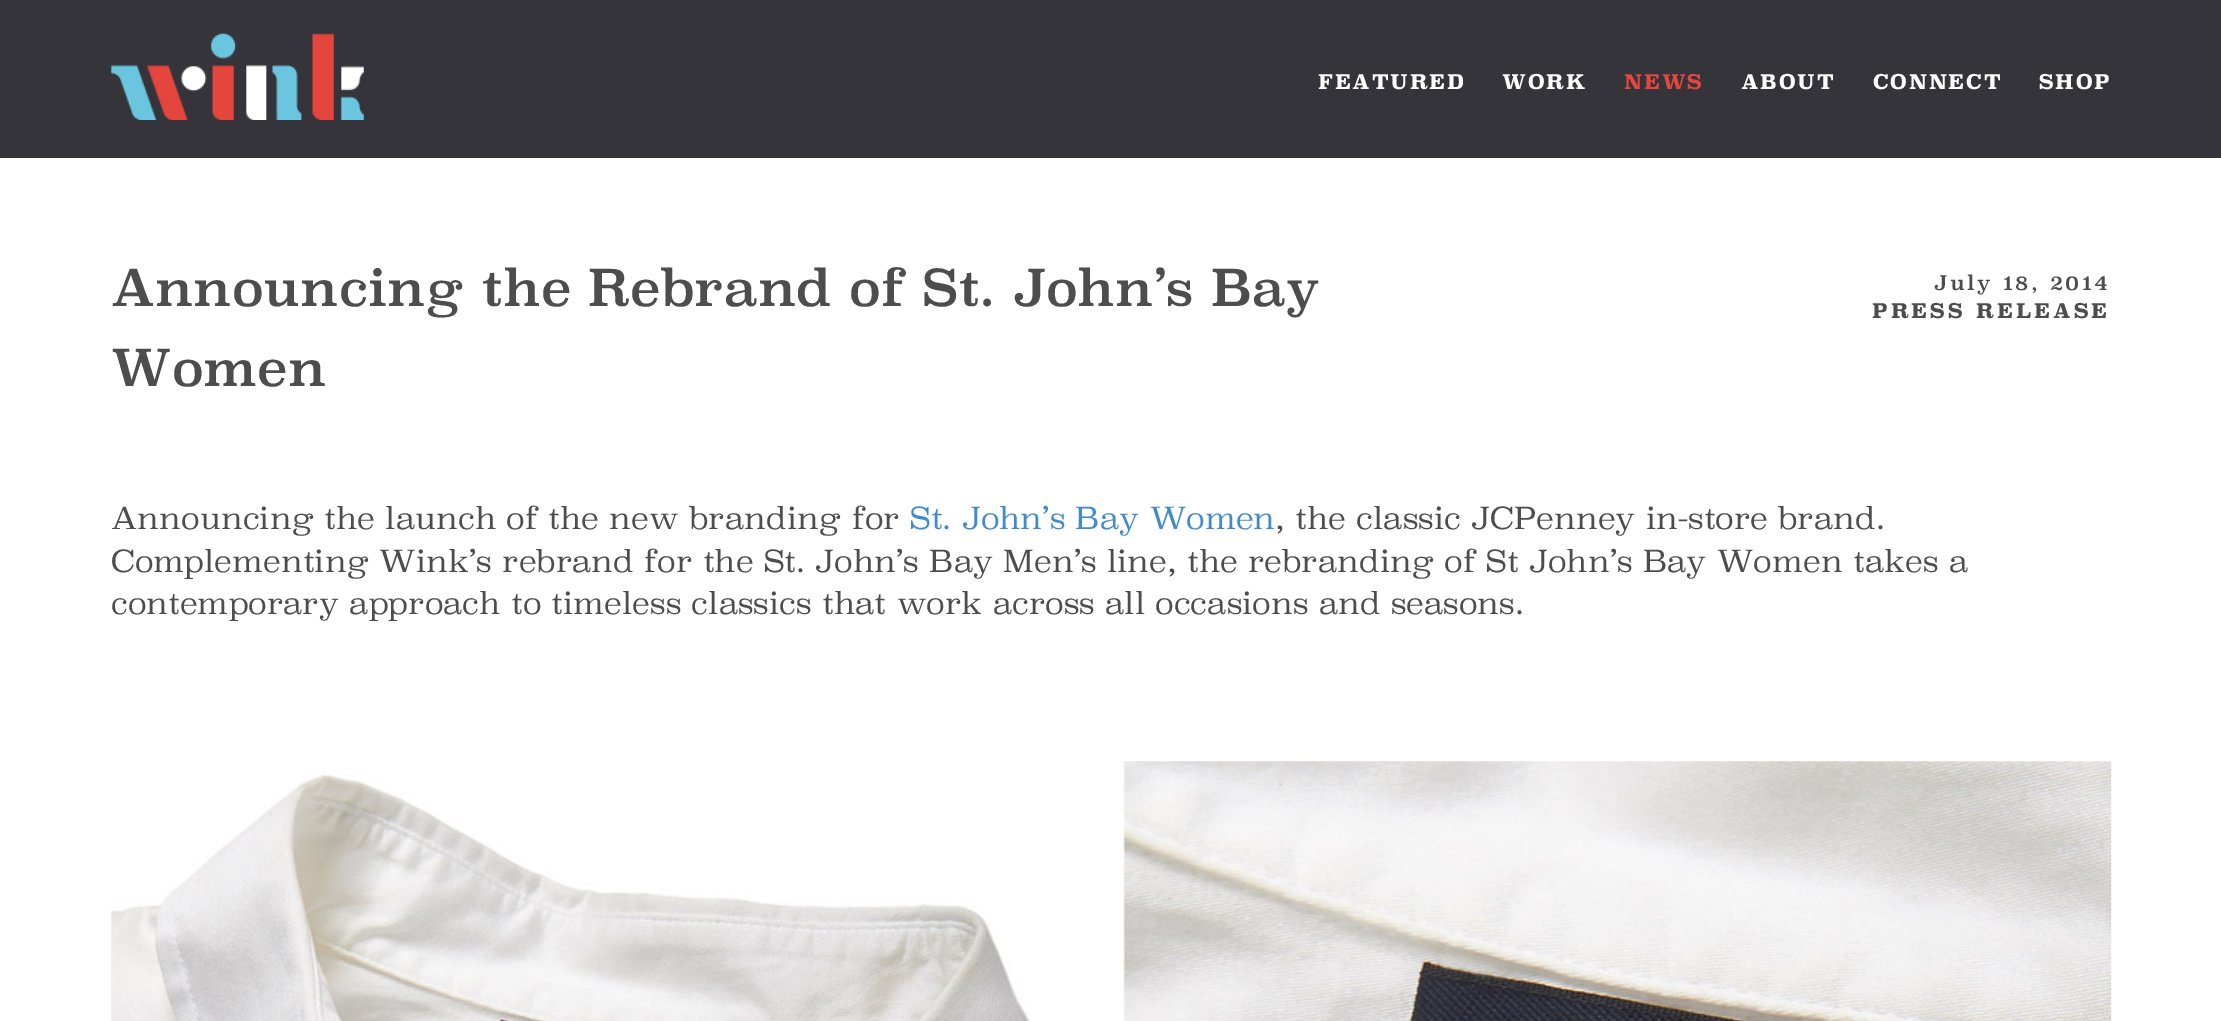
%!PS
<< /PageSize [2221 1021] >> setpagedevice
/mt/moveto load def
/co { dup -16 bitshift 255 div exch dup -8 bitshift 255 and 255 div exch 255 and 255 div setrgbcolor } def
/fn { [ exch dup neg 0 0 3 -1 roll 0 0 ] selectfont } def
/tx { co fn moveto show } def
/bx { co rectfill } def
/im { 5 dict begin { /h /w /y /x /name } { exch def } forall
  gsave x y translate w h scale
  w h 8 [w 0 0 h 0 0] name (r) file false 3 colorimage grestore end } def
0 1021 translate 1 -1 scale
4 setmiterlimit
0 0 2221 1021 16#FFFFFF bx
0 0 2221 158 16#34343A bx
(media/1.raw) 111 33 253 87 im
(media/2.raw) 111 761 2001 260 im
/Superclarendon-Bold 20 fn
16#FFFFFF co
1318 89 mt 1.75 0 (FEATURED) ashow
1502 89 mt 1.75 0 (WORK) ashow
16#E5463E co
1624 89 mt 1.75 0 (NEWS) ashow
16#FFFFFF co
1741 89 mt 1.75 0 (ABOUT) ashow
1873 89 mt 1.75 0 (CONNECT) ashow
2039 89 mt 1.75 0 (SHOP) ashow
(Announcing the Rebrand of St. John’s Bay) 111 306 /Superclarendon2-Regular 50 16#4D4D4D tx
(Women) 111 386 /Superclarendon2-Regular 50 16#4D4D4D tx
/Superclarendon2-Regular 20 fn
1934 290 mt 2.5 0 (July 18, 2014) ashow
/Superclarendon-Bold 20 fn
1872 318 mt 3 0 (PRESS RELEASE) ashow
(Announcing the launch of the new branding for) 111 529 /Superclarendon-Regular 30 16#4D4D4D tx
(St. John’s Bay Women) 910 529 /Superclarendon-Regular 30 16#428BCA tx
(, the classic JCPenney in-store brand.) 1275 529 /Superclarendon-Regular 30 16#4D4D4D tx
(Complementing Wink’s rebrand for the St. John’s Bay Men’s line, the rebranding of St John’s Bay Women takes a) 111 572 /Superclarendon-Regular 30 16#4D4D4D tx
(contemporary approach to timeless classics that work across all occasions and seasons.) 111 614 /Superclarendon-Regular 30 16#4D4D4D tx
showpage
